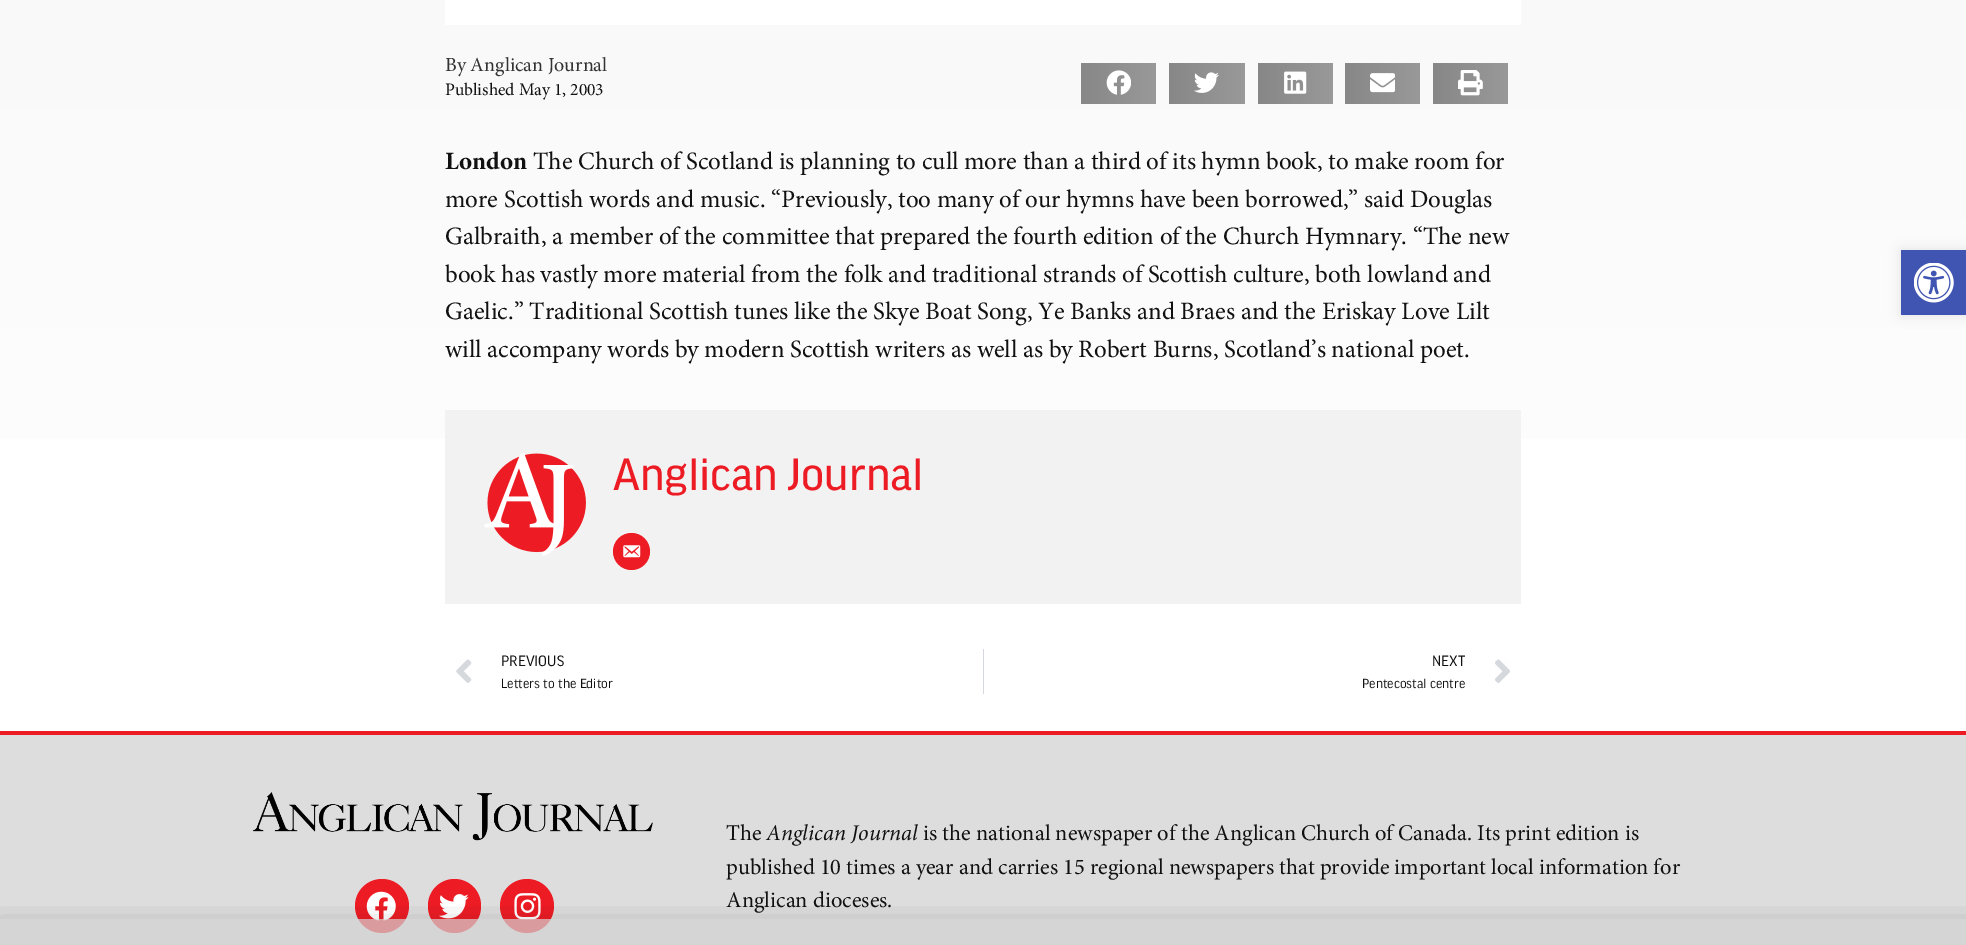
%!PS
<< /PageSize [1966 945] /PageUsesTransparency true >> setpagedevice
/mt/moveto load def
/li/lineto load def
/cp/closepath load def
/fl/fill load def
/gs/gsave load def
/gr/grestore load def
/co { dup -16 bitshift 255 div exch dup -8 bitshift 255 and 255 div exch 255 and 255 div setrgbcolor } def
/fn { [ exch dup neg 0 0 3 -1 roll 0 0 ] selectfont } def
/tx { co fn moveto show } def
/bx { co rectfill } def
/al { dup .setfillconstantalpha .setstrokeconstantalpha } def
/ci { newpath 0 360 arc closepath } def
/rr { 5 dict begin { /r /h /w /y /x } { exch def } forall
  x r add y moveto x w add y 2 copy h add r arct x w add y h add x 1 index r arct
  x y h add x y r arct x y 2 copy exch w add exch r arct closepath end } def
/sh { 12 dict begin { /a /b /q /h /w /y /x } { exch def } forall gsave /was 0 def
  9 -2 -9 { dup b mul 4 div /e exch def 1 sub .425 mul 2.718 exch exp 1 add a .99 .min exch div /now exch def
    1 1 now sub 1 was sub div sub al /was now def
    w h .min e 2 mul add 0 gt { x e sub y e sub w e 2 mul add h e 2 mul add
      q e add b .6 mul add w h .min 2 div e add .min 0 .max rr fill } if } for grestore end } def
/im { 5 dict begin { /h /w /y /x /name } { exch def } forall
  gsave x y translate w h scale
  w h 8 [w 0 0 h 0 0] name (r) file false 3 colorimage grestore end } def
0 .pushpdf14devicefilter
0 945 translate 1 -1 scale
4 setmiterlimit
0 0 1966 945 16#FFFFFF bx
gs 0 0 mt 1966 0 li 1966 439 li 0 439 li cp clip newpath
<< /ShadingType 2 /ColorSpace /DeviceRGB /Coords [983 -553 983 731] /Extend [true true] /Function << /FunctionType 2 /Domain [0 1] /C0 [.957 .957 .957] /C1 [1 1 1] /N 1 >> >> shfill gr
445 0 1076 25 16#FFFFFF bx
gs 1081 63 mt 1156 63 li 1156 104 li 1081 104 li cp clip newpath
<< /ShadingType 2 /ColorSpace /DeviceRGB /Coords [1081 83 1156 83] /Extend [true true] /Function << /FunctionType 2 /Domain [0 1] /C0 [.529 .529 .529] /C1 [.6 .6 .6] /N 1 >> >> shfill gr
(media/1.raw) 1106 70 25 25 im
gs 1169 63 mt 1245 63 li 1245 104 li 1169 104 li cp clip newpath
<< /ShadingType 2 /ColorSpace /DeviceRGB /Coords [1169 83 1245 83] /Extend [true true] /Function << /FunctionType 2 /Domain [0 1] /C0 [.529 .529 .529] /C1 [.6 .6 .6] /N 1 >> >> shfill gr
(media/2.raw) 1194 72 25 21 im
gs 1258 63 mt 1333 63 li 1333 104 li 1258 104 li cp clip newpath
<< /ShadingType 2 /ColorSpace /DeviceRGB /Coords [1258 83 1333 83] /Extend [true true] /Function << /FunctionType 2 /Domain [0 1] /C0 [.529 .529 .529] /C1 [.6 .6 .6] /N 1 >> >> shfill gr
(media/3.raw) 1284 71 23 23 im
gs 1345 63 mt 1420 63 li 1420 104 li 1345 104 li cp clip newpath
<< /ShadingType 2 /ColorSpace /DeviceRGB /Coords [1345 83 1420 83] /Extend [true true] /Function << /FunctionType 2 /Domain [0 1] /C0 [.529 .529 .529] /C1 [.6 .6 .6] /N 1 >> >> shfill gr
(media/4.raw) 1370 73 25 20 im
gs 1433 63 mt 1508 63 li 1508 104 li 1433 104 li cp clip newpath
<< /ShadingType 2 /ColorSpace /DeviceRGB /Coords [1433 83 1508 83] /Extend [true true] /Function << /FunctionType 2 /Domain [0 1] /C0 [.529 .529 .529] /C1 [.6 .6 .6] /N 1 >> >> shfill gr
(media/5.raw) 1458 70 25 26 im
445 410 1076 194 16#F2F2F2 bx
(media/6.raw) 484 453 102 103 im
16#ED1B24 co
631.5 551.5 18.5 ci fl
(media/7.raw) 623 545 18 13 im
(media/8.raw) 456 659 16 24 im
983 649 1 45 16#D5D8DC bx
(media/9.raw) 1495 659 15 24 im
16#000000 co
1901 250 65 65 0 6 .1 sh
1901 250 65 65 16#4054B2 bx
(media/10.raw) 1914 263 40 40 im
0 735 1966 210 16#DDDDDD bx
0 731 1966 4 16#ED1B24 bx
(media/11.raw) 253 792 400 49 im
382 906 27 ci fl
(media/12.raw) 366 891 30 30 im
428 879 53 54 26.5 rr fl
(media/13.raw) 439 894 30 25 im
527 906 27 ci fl
(media/14.raw) 514 893 27 27 im
gs
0 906 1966 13 rectclip
16#000000 co
-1 925 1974 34 0 14.5 .2 sh
gr
0.7 al
0 919 1966 26 16#D1D1D1 bx
1 al
(By Anglican Journal) 445 71 /Minion-Regular 20 16#333333 tx
(Published May 1, 2003) 445 95 /Minion-Regular 17.5 16#111111 tx
(London) 445 169 /Minion-Bold 25 16#111111 tx
(The Church of Scotland is planning to cull more than a third of its hymn book, to make room for) 533 169 /Minion-Regular 25 16#111111 tx
(more Scottish words and music. “Previously, too many of our hymns have been borrowed,” said Douglas) 445 207 /Minion-Regular 25 16#111111 tx
(Galbraith, a member of the committee that prepared the fourth edition of the Church Hymnary. “The new) 445 244 /Minion-Regular 25 16#111111 tx
(book has vastly more material from the folk and traditional strands of Scottish culture, both lowland and) 445 282 /Minion-Regular 25 16#111111 tx
(Gaelic.” Traditional Scottish tunes like the Skye Boat Song, Ye Banks and Braes and the Eriskay Love Lilt) 445 319 /Minion-Regular 25 16#111111 tx
(will accompany words by modern Scottish writers as well as by Robert Burns, Scotland’s national poet.) 445 357 /Minion-Regular 25 16#111111 tx
(Anglican Journal) 613 490 /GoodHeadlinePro-Medium 48 16#ED1B24 tx
(PREVIOUS) 501 666 /GoodHeadlinePro-Regular 16 16#111111 tx
(Letters to the Editor) 501 688 /GoodHeadlinePro-Regular 14 16#111111 tx
(NEXT) 1432 666 /GoodHeadlinePro-Regular 16 16#111111 tx
(Pentecostal centre) 1362 688 /GoodHeadlinePro-Regular 14 16#111111 tx
(The) 726 840 /Minion-Regular 22.5 16#111111 tx
(Anglican Journal) 766 840 /Minion-Italic 22.5 16#111111 tx
(is the national newspaper of the Anglican Church of Canada. Its print edition is) 923 840 /Minion-Regular 22.5 16#111111 tx
(published 10 times a year and carries 15 regional newspapers that provide important local information for) 726 874 /Minion-Regular 22.5 16#111111 tx
(Anglican dioceses.) 726 907 /Minion-Regular 22.5 16#111111 tx
.poppdf14devicefilter showpage
